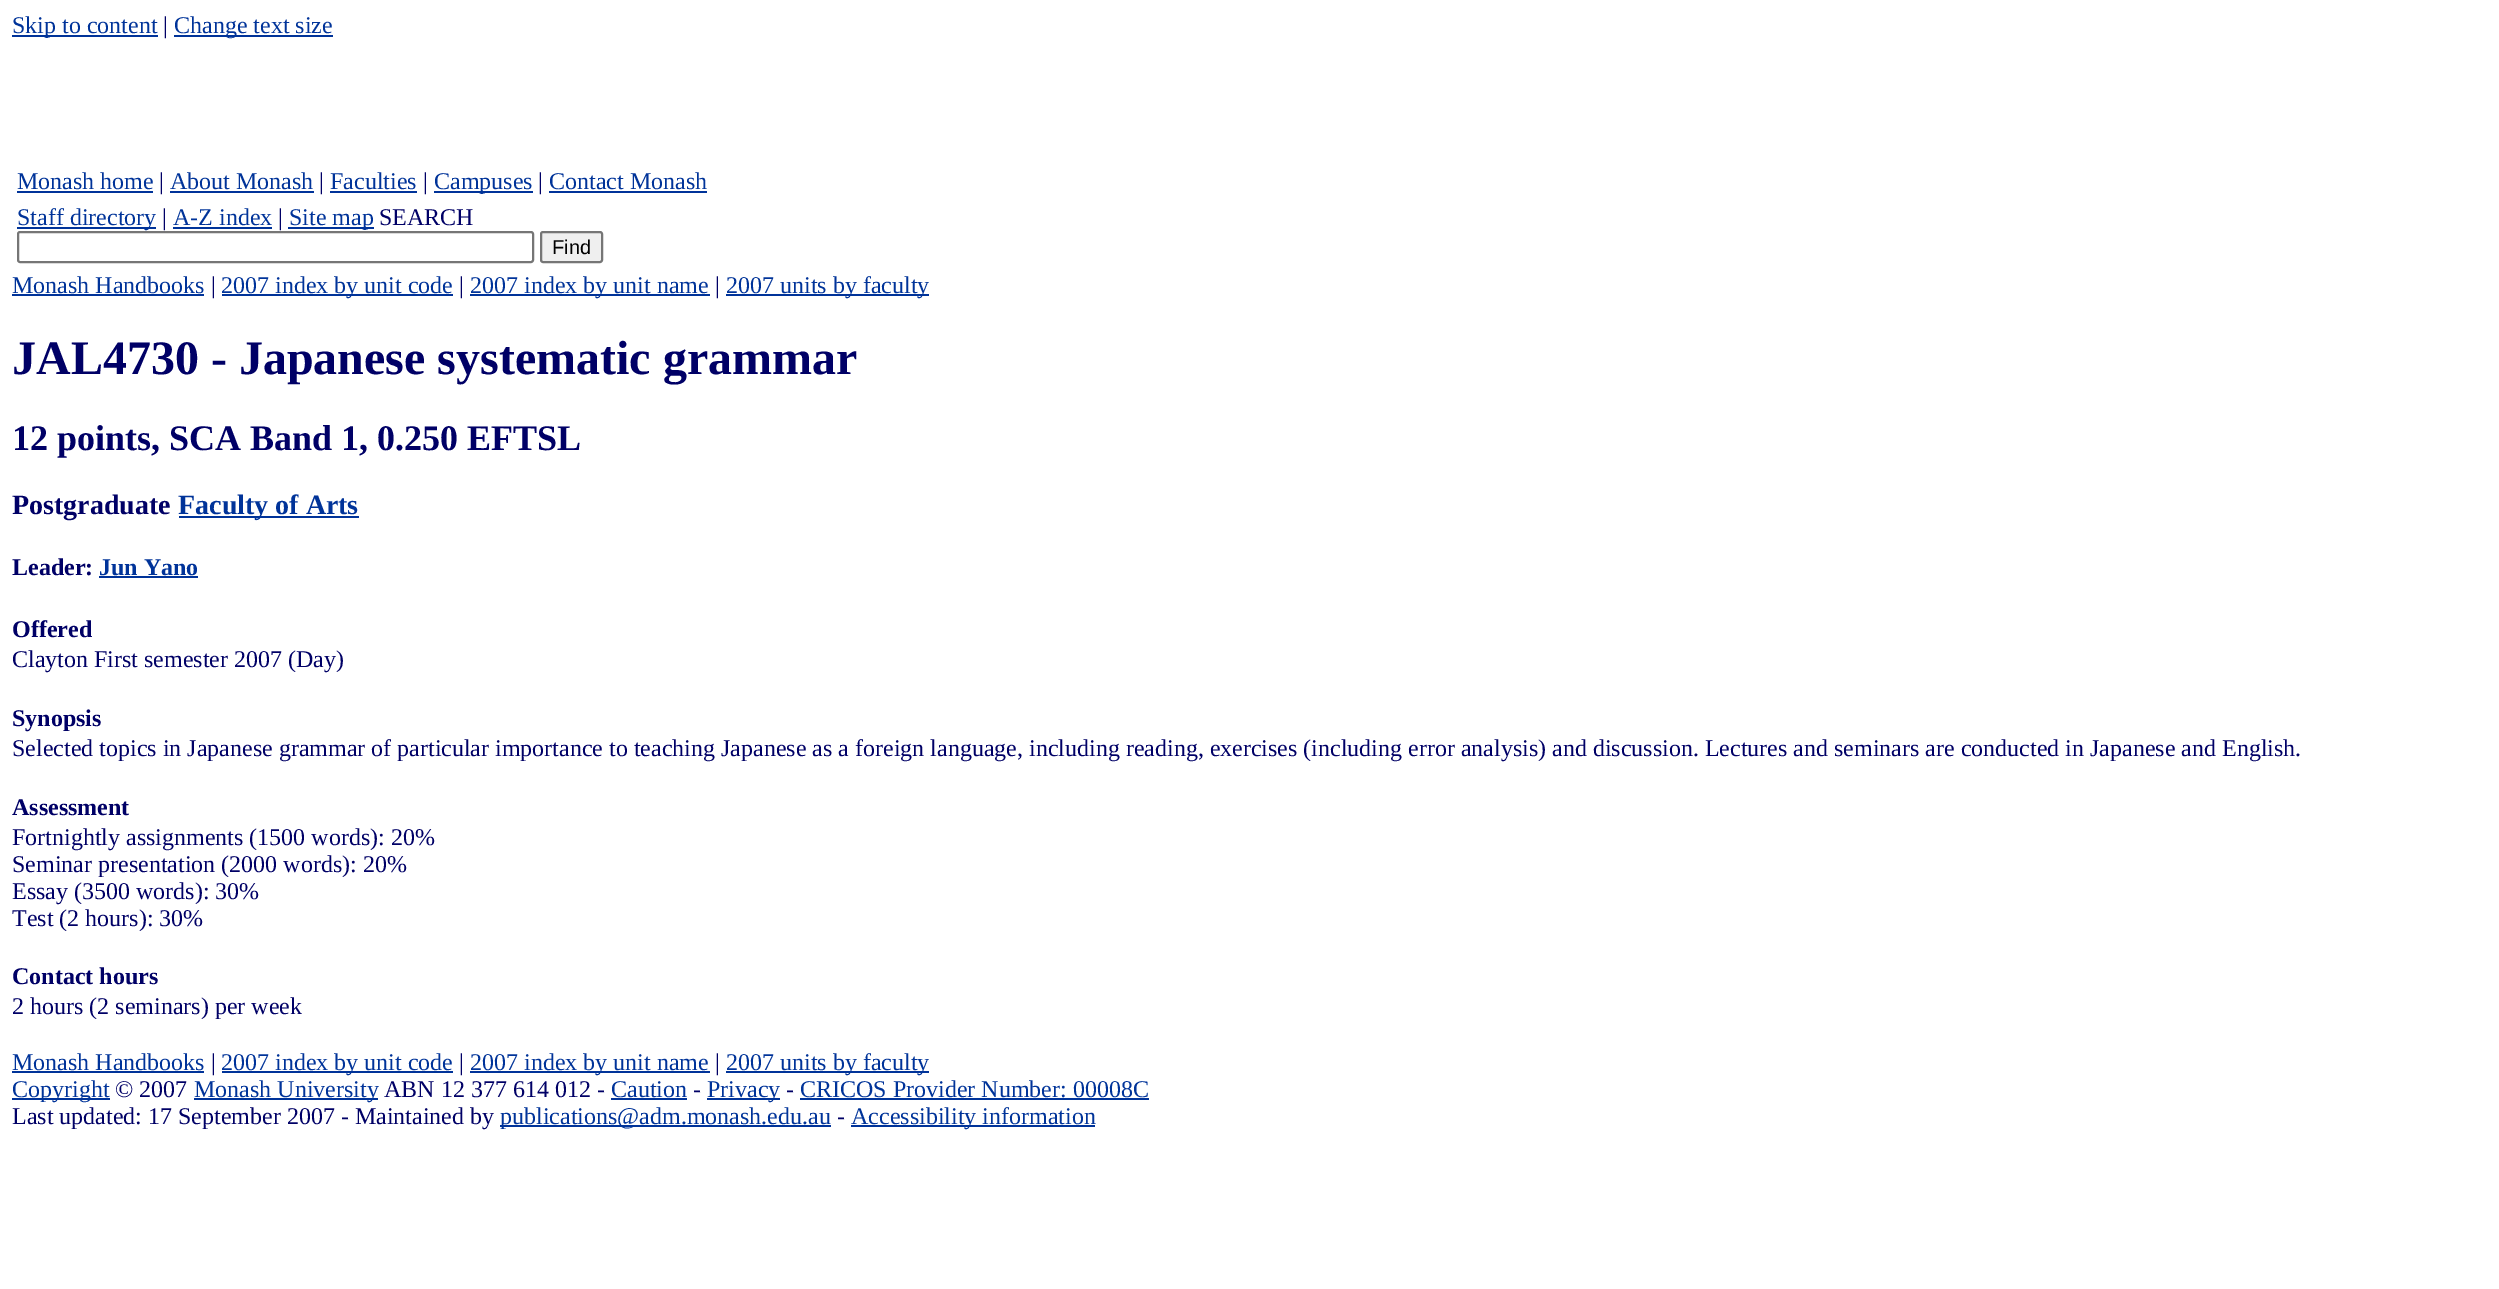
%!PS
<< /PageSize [2499 1289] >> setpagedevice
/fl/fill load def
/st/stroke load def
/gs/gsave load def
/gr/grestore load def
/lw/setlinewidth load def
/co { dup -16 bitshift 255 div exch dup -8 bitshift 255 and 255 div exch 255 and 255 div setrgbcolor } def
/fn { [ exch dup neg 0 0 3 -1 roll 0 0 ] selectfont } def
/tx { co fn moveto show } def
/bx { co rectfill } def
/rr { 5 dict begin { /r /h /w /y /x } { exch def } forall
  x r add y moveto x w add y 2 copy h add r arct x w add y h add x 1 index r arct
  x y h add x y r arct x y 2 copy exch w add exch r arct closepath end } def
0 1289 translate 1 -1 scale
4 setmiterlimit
0 0 2499 1289 16#FFFFFF bx
12 35 146 2 16#003399 bx
174 35 159 2 16#003399 bx
17 191 136 2 16#003399 bx
170 191 144 2 16#003399 bx
330 191 87 2 16#003399 bx
434 191 99 2 16#003399 bx
549 191 158 2 16#003399 bx
17 227 139 2 16#003399 bx
173 227 99 2 16#003399 bx
288 227 86 2 16#003399 bx
16#767676 co
2 lw
18 232 515 30 2 rr st
16#EFEFEF co
541 232 61 30 2 rr gs fl gr
16#767676 co
st
12 294 192 2 16#003399 bx
222 294 231 2 16#003399 bx
470 294 240 2 16#003399 bx
726 294 203 2 16#003399 bx
179 516 180 2 16#003399 bx
99 576 99 2 16#003399 bx
12 1071 192 2 16#003399 bx
222 1071 231 2 16#003399 bx
470 1071 240 2 16#003399 bx
726 1071 203 2 16#003399 bx
12 1098 98 2 16#003399 bx
194 1098 184 2 16#003399 bx
611 1098 76 2 16#003399 bx
707 1098 73 2 16#003399 bx
800 1098 349 2 16#003399 bx
500 1125 331 2 16#003399 bx
851 1125 244 2 16#003399 bx
(Skip to content) 12 33 /LiberationSerif-Regular 24 16#003399 tx
(|) 163 33 /LiberationSerif-Regular 24 16#000066 tx
(Change text size) 174 33 /LiberationSerif-Regular 24 16#003399 tx
(Monash home) 17 189 /LiberationSerif-Regular 24 16#003399 tx
(|) 159 189 /LiberationSerif-Regular 24 16#000066 tx
(About Monash) 170 189 /LiberationSerif-Regular 24 16#003399 tx
(|) 319 189 /LiberationSerif-Regular 24 16#000066 tx
(Faculties) 330 189 /LiberationSerif-Regular 24 16#003399 tx
(|) 423 189 /LiberationSerif-Regular 24 16#000066 tx
(Campuses) 434 189 /LiberationSerif-Regular 24 16#003399 tx
(|) 538 189 /LiberationSerif-Regular 24 16#000066 tx
(Contact Monash) 549 189 /LiberationSerif-Regular 24 16#003399 tx
(Staff directory) 17 225 /LiberationSerif-Regular 24 16#003399 tx
(|) 162 225 /LiberationSerif-Regular 24 16#000066 tx
(A-Z index) 173 225 /LiberationSerif-Regular 24 16#003399 tx
(|) 278 225 /LiberationSerif-Regular 24 16#000066 tx
(Site map) 289 225 /LiberationSerif-Regular 24 16#003399 tx
(SEARCH) 379 225 /LiberationSerif-Regular 24 16#000066 tx
(Find) 552 254 /LiberationSans-Regular 20 16#000000 tx
(Monash Handbooks) 12 293 /LiberationSerif-Regular 24 16#003399 tx
(|) 211 293 /LiberationSerif-Regular 24 16#000066 tx
(2007 index by unit code) 221 293 /LiberationSerif-Regular 24 16#003399 tx
(|) 459 293 /LiberationSerif-Regular 24 16#000066 tx
(2007 index by unit name) 470 293 /LiberationSerif-Regular 24 16#003399 tx
(|) 715 293 /LiberationSerif-Regular 24 16#000066 tx
(2007 units by faculty) 726 293 /LiberationSerif-Regular 24 16#003399 tx
(JAL4730 - Japanese systematic grammar) 12 374 /LiberationSerif-Bold 48 16#000066 tx
(12 points, SCA Band 1, 0.250 EFTSL) 12 450 /LiberationSerif-Bold 36 16#000066 tx
(Postgraduate) 12 514 /LiberationSerif-Bold 28 16#000066 tx
(Faculty of Arts) 178 514 /LiberationSerif-Bold 28 16#003399 tx
(Leader:) 12 575 /LiberationSerif-Bold 24 16#000066 tx
(Jun Yano) 99 575 /LiberationSerif-Bold 24 16#003399 tx
(Offered) 12 637 /LiberationSerif-Bold 24 16#000066 tx
(Clayton First semester 2007 \(Day\)) 12 667 /LiberationSerif-Regular 24 16#000066 tx
(Synopsis) 12 726 /LiberationSerif-Bold 24 16#000066 tx
(Selected topics in Japanese grammar of particular importance to teaching Japanese as a foreign language, including reading, exercises \(including error analysis\) and discussion. Lectures and seminars are conducted in Japanese and English.) 12 756 /LiberationSerif-Regular 24 16#000066 tx
(Assessment) 12 815 /LiberationSerif-Bold 24 16#000066 tx
(Fortnightly assignments \(1500 words\): 20%) 12 845 /LiberationSerif-Regular 24 16#000066 tx
(Seminar presentation \(2000 words\): 20%) 12 872 /LiberationSerif-Regular 24 16#000066 tx
(Essay \(3500 words\): 30%) 12 899 /LiberationSerif-Regular 24 16#000066 tx
(Test \(2 hours\): 30%) 12 926 /LiberationSerif-Regular 24 16#000066 tx
(Contact hours) 12 984 /LiberationSerif-Bold 24 16#000066 tx
(2 hours \(2 seminars\) per week) 12 1014 /LiberationSerif-Regular 24 16#000066 tx
(Monash Handbooks) 12 1070 /LiberationSerif-Regular 24 16#003399 tx
(|) 211 1070 /LiberationSerif-Regular 24 16#000066 tx
(2007 index by unit code) 221 1070 /LiberationSerif-Regular 24 16#003399 tx
(|) 459 1070 /LiberationSerif-Regular 24 16#000066 tx
(2007 index by unit name) 470 1070 /LiberationSerif-Regular 24 16#003399 tx
(|) 715 1070 /LiberationSerif-Regular 24 16#000066 tx
(2007 units by faculty) 726 1070 /LiberationSerif-Regular 24 16#003399 tx
(Copyright) 12 1097 /LiberationSerif-Regular 24 16#003399 tx
(© 2007) 115 1097 /LiberationSerif-Regular 24 16#000066 tx
(Monash University) 194 1097 /LiberationSerif-Regular 24 16#003399 tx
(ABN 12 377 614 012 -) 384 1097 /LiberationSerif-Regular 24 16#000066 tx
(Caution) 611 1097 /LiberationSerif-Regular 24 16#003399 tx
(-) 693 1097 /LiberationSerif-Regular 24 16#000066 tx
(Privacy) 707 1097 /LiberationSerif-Regular 24 16#003399 tx
(-) 786 1097 /LiberationSerif-Regular 24 16#000066 tx
(CRICOS Provider Number: 00008C) 800 1097 /LiberationSerif-Regular 24 16#003399 tx
(Last updated: 17 September 2007 - Maintained by) 12 1124 /LiberationSerif-Regular 24 16#000066 tx
(publications@adm.monash.edu.au) 500 1124 /LiberationSerif-Regular 24 16#003399 tx
(-) 837 1124 /LiberationSerif-Regular 24 16#000066 tx
(Accessibility information) 851 1124 /LiberationSerif-Regular 24 16#003399 tx
showpage
